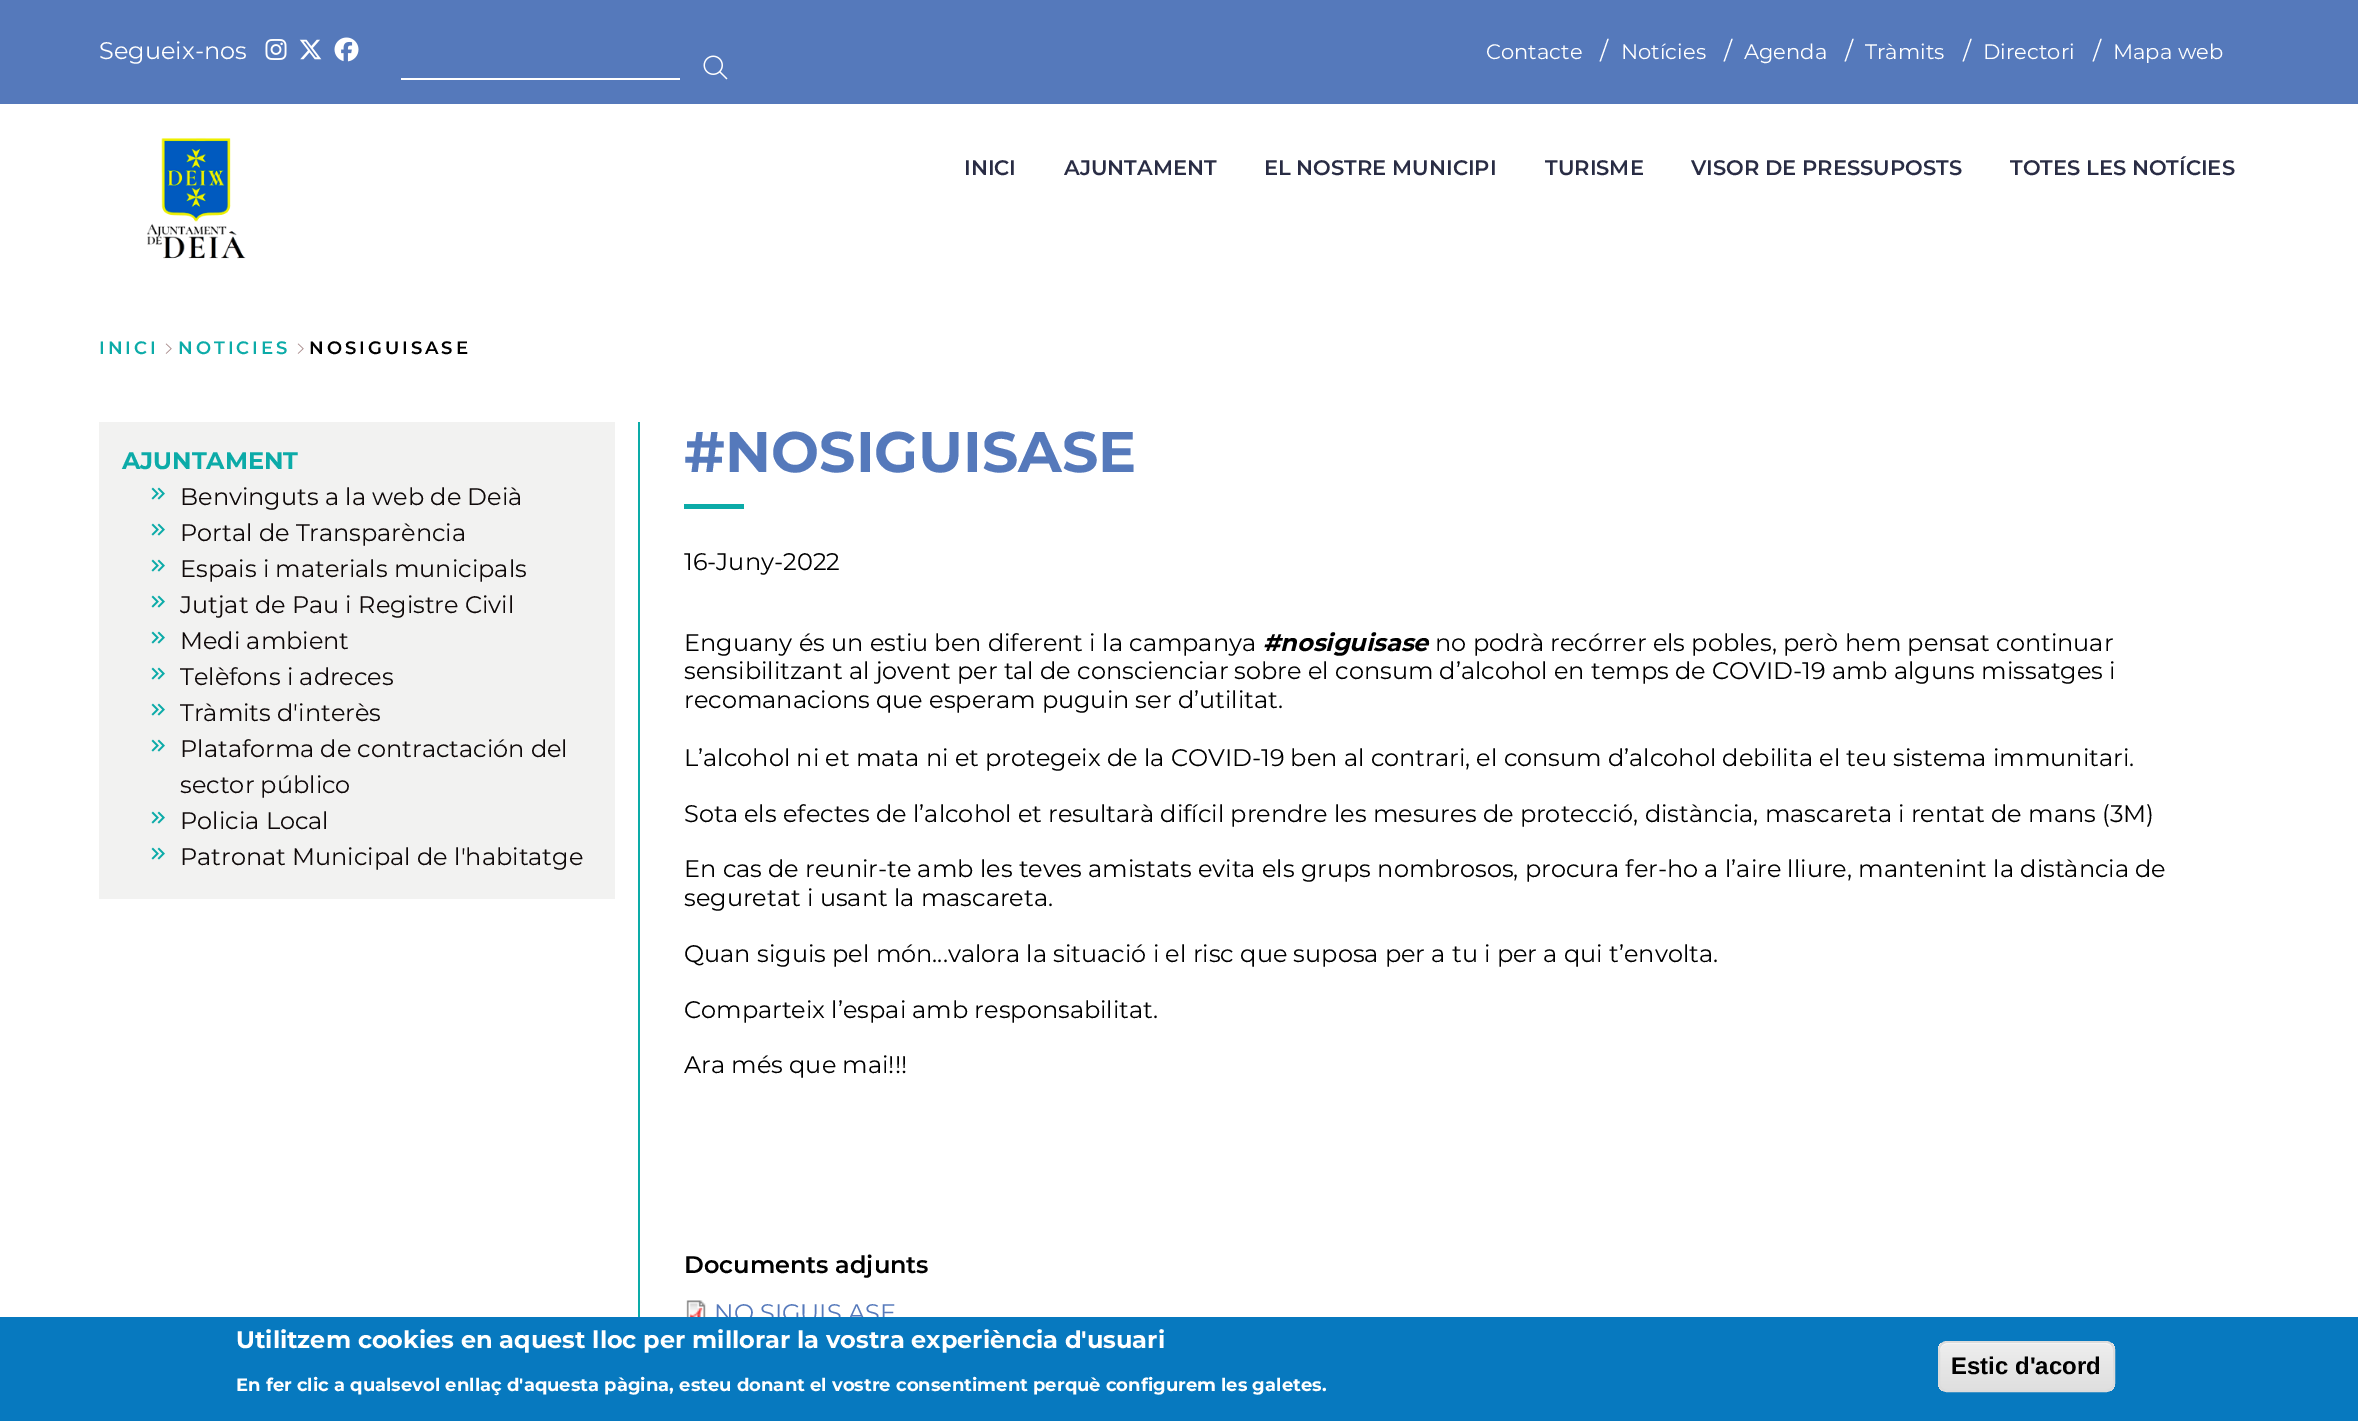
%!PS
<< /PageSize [2358 1421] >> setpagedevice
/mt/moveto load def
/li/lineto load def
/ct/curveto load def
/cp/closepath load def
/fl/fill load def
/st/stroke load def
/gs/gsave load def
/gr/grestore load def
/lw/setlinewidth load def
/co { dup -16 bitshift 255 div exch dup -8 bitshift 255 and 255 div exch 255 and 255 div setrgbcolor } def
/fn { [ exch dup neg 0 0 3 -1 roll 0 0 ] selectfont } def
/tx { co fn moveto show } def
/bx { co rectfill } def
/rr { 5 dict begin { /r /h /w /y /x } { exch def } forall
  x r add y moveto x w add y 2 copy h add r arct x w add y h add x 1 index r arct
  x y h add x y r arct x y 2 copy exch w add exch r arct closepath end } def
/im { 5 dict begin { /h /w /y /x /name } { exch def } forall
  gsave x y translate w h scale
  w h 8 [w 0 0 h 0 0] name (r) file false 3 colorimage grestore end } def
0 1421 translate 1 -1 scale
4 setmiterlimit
0 0 2358 1421 16#FFFFFF bx
0 0 2358 104 16#5579BB bx
(media/1.raw) 265 39 22 21 im
(media/2.raw) 299 39 23 21 im
(media/3.raw) 334 37 25 25 im
401 78 279 2 16#FFFFFF bx
(media/4.raw) 703 55 25 25 im
(media/5.raw) 147 137 99 122 im
(media/6.raw) 165 343 7 11 im
(media/6.raw) 297 343 7 11 im
638 422 2 895 16#0CABA8 bx
99 422 516 477 16#F2F2F1 bx
(media/7.raw) 151 487 14 13 im
(media/7.raw) 151 523 14 13 im
(media/7.raw) 151 559 14 13 im
(media/7.raw) 151 595 14 13 im
(media/7.raw) 151 631 14 13 im
(media/7.raw) 151 667 14 13 im
(media/7.raw) 151 703 14 13 im
(media/7.raw) 151 739 14 13 im
(media/7.raw) 151 811 14 13 im
(media/7.raw) 151 847 14 13 im
684 504 60 5 16#0CABA8 bx
(media/8.raw) 686 1300 20 17 im
(Segueix-nos) 99 59 /Montserrat-Regular 24 16#FFFFFF tx
(Contacte) 1486 59 /Montserrat-Regular 21 16#FFFFFF tx
(/) 1600 59 /Montserrat-Regular 24 16#FFFFFF tx
(Notícies) 1621 59 /Montserrat-Regular 21 16#FFFFFF tx
(/) 1724 59 /Montserrat-Regular 24 16#FFFFFF tx
(Agenda) 1744 59 /Montserrat-Regular 21 16#FFFFFF tx
(/) 1845 59 /Montserrat-Regular 24 16#FFFFFF tx
(Tràmits) 1865 59 /Montserrat-Regular 21 16#FFFFFF tx
(/) 1963 59 /Montserrat-Regular 24 16#FFFFFF tx
(Directori) 1983 59 /Montserrat-Regular 21 16#FFFFFF tx
(/) 2093 59 /Montserrat-Regular 24 16#FFFFFF tx
(Mapa web) 2113 59 /Montserrat-Regular 21 16#FFFFFF tx
(INICI) 964 175 /Montserrat-SemiBold 21 16#292C44 tx
(AJUNTAMENT) 1064 175 /Montserrat-SemiBold 21 16#292C44 tx
(EL NOSTRE MUNICIPI) 1264 175 /Montserrat-SemiBold 21 16#292C44 tx
(TURISME) 1545 175 /Montserrat-SemiBold 21 16#292C44 tx
(VISOR DE PRESSUPOSTS) 1691 175 /Montserrat-SemiBold 21 16#292C44 tx
(TOTES LES NOTÍCIES) 2010 175 /Montserrat-SemiBold 21 16#292C44 tx
/Montserrat-SemiBold 18 fn
16#0CABA8 co
99 354 mt 3 0 (INICI) ashow
178 354 mt 3 0 (NOTICIES) ashow
16#000000 co
309 354 mt 3 0 (NOSIGUISASE) ashow
(AJUNTAMENT) 122 469 /Montserrat-Bold 24 16#0CABA8 tx
(Benvinguts a la web de Deià) 180 505 /Montserrat-Regular 24 16#0F0909 tx
(Portal de Transparència) 180 541 /Montserrat-Regular 24 16#0F0909 tx
(Espais i materials municipals) 180 577 /Montserrat-Regular 24 16#0F0909 tx
(Jutjat de Pau i Registre Civil) 180 613 /Montserrat-Regular 24 16#0F0909 tx
(Medi ambient) 180 649 /Montserrat-Regular 24 16#0F0909 tx
(Telèfons i adreces) 180 685 /Montserrat-Regular 24 16#0F0909 tx
(Tràmits d'interès) 180 721 /Montserrat-Regular 24 16#0F0909 tx
(Plataforma de contractación del) 180 757 /Montserrat-Regular 24 16#0F0909 tx
(sector público) 180 793 /Montserrat-Regular 24 16#0F0909 tx
(Policia Local) 180 829 /Montserrat-Regular 24 16#0F0909 tx
(Patronat Municipal de l'habitatge) 180 865 /Montserrat-Regular 24 16#0F0909 tx
(#NOSIGUISASE) 684 472 /Montserrat-Bold 57 16#5579BB tx
(16-Juny-2022) 684 570 /Montserrat-Regular 24 16#000000 tx
(Enguany és un estiu ben diferent i la campanya) 684 651 /Montserrat-Regular 24 16#000000 tx
(#nosiguisase) 1263 651 /Montserrat-BoldItalic 24 16#000000 tx
(no podrà recórrer els pobles, però hem pensat continuar) 1435 651 /Montserrat-Regular 24 16#000000 tx
(sensibilitzant al jovent per tal de conscienciar sobre el consum d’alcohol en temps de COVID-19 amb alguns missatges i) 684 679 /Montserrat-Regular 24 16#000000 tx
(recomanacions que esperam puguin ser d’utilitat.) 684 708 /Montserrat-Regular 24 16#000000 tx
(L’alcohol ni et mata ni et protegeix de la COVID-19 ben al contrari, el consum d’alcohol debilita el teu sistema immunitari.) 684 766 /Montserrat-Regular 24 16#000000 tx
(Sota els efectes de l’alcohol et resultarà difícil prendre les mesures de protecció, distància, mascareta i rentat de mans \(3M\)) 684 822 /Montserrat-Regular 24 16#000000 tx
(En cas de reunir-te amb les teves amistats evita els grups nombrosos, procura fer-ho a l’aire lliure, mantenint la distància de) 684 877 /Montserrat-Regular 24 16#000000 tx
(seguretat i usant la mascareta.) 684 906 /Montserrat-Regular 24 16#000000 tx
(Quan siguis pel món...valora la situació i el risc que suposa per a tu i per a qui t’envolta.) 684 962 /Montserrat-Regular 24 16#000000 tx
(Comparteix l’espai amb responsabilitat.) 684 1018 /Montserrat-Regular 24 16#000000 tx
(Ara més que mai!!!) 684 1073 /Montserrat-Regular 24 16#000000 tx
(Documents adjunts) 684 1273 /Montserrat-SemiBold 24 16#000000 tx
(NO SIGUIS ASE) 714 1321 /Montserrat-Regular 24 16#5579BB tx
0 1317 2358 104 16#0779BF bx
(Utilitzem cookies en aquest lloc per millorar la vostra experiència d'usuari) 236 1348 /Montserrat-Bold 24 16#FFFFFF tx
(En fer clic a qualsevol enllaç d'aquesta pàgina, esteu donant el vostre consentiment perquè configurem les galetes.) 236 1391 /Montserrat-Bold 18 16#FFFFFF tx
gs
1938 1341 177 51 9 rr clip newpath
gs 1938 1343 mt 2115 1343 li 2115 1391 li 1938 1391 li cp clip newpath
<< /ShadingType 2 /ColorSpace /DeviceRGB /Coords [2027 1343 2027 1391] /Extend [true true] /Function << /FunctionType 3 /Domain [0 1] /Functions [<< /FunctionType 2 /Domain [0 1] /C0 [.929 .929 .929] /C1 [.929 .929 .929] /N 1 >> << /FunctionType 2 /Domain [0 1] /C0 [.929 .929 .929] /C1 [.875 .875 .875] /N 1 >>] /Bounds [.05] /Encode [0 1 0 1] >> >> shfill gr
gr
1947 1344 mt 2106 1344 li 2110 1344 2114 1347 2114 1352 ct 2114 1351 li 2114 1347 2110 1343 2106 1343 ct 1948 1343 li 1944 1343 1940 1347 1940 1351 ct 1940 1352 li 1940 1347 1943 1344 1947 1344 ct cp fl
16#DCDCDC co
2 lw
1939 1342 175 49 8 rr st
(Estic d'acord) 1951 1374 /LiberationSans-Bold 24 16#000000 tx
showpage
